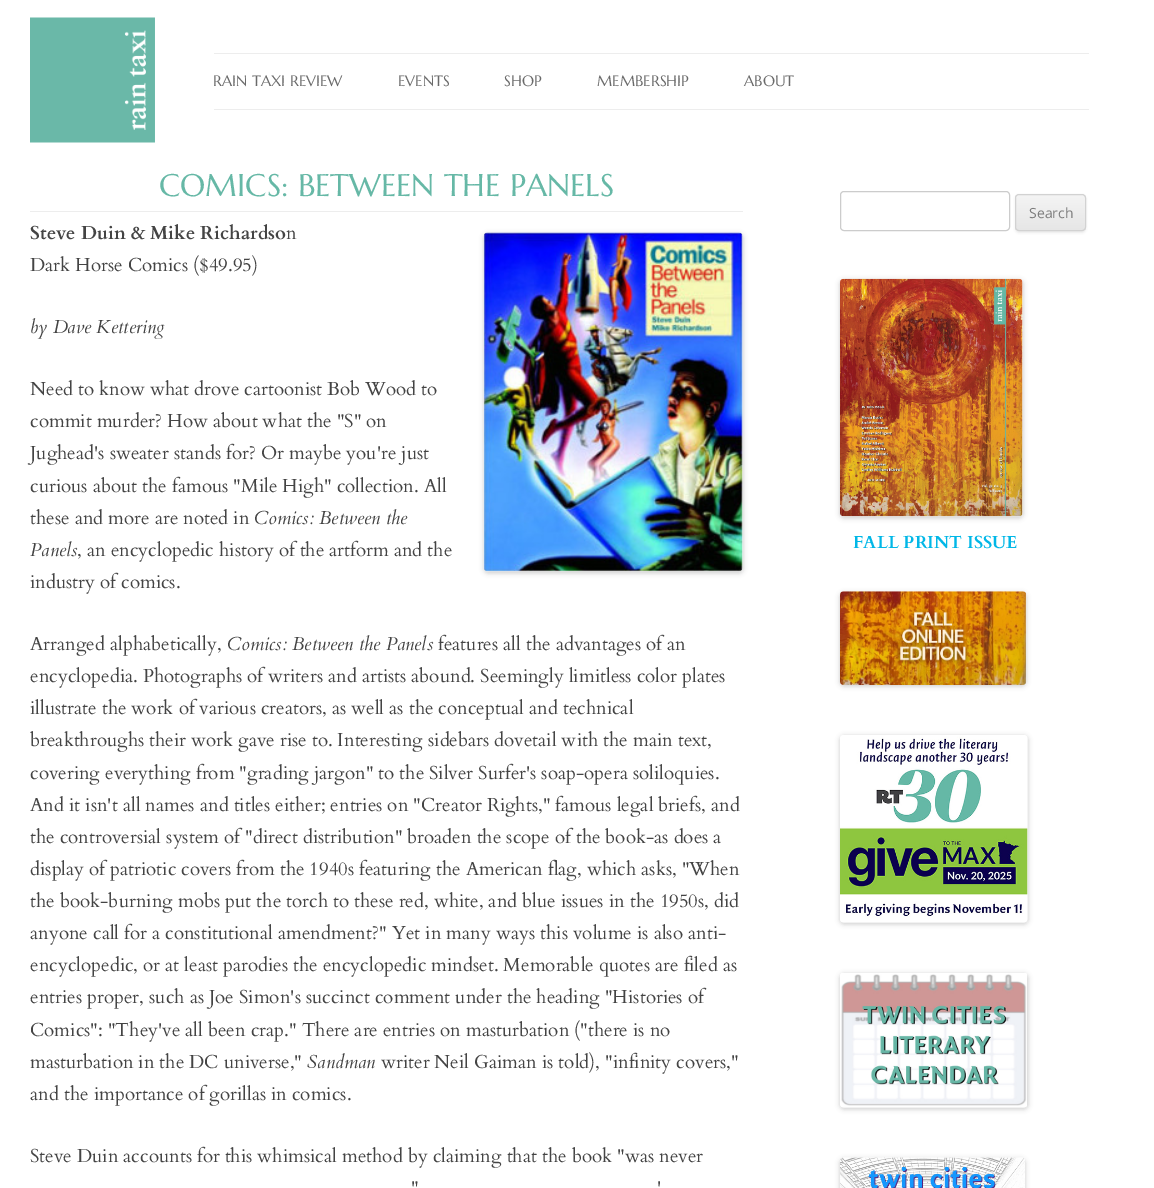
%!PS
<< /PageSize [1154 1188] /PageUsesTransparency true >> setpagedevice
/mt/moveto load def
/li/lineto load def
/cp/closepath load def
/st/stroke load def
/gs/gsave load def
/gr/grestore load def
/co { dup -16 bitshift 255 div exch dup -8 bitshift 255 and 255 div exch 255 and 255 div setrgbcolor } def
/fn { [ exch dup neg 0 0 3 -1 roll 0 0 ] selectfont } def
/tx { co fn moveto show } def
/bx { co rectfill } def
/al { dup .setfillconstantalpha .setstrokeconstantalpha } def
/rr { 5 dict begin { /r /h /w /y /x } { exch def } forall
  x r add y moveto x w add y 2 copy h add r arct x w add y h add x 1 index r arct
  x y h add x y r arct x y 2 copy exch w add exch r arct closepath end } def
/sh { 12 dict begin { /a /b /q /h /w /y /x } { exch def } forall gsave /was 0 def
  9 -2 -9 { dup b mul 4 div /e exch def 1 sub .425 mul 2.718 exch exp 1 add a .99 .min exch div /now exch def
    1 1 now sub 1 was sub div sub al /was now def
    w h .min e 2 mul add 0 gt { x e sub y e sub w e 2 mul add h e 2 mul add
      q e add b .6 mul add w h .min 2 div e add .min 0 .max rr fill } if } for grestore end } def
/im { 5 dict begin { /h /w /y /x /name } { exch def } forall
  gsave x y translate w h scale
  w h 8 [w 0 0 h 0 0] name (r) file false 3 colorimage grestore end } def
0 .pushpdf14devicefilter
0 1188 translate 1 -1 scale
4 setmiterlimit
0 0 1154 1188 16#FFFFFF bx
(media/1.raw) 30 17 125 126 im
214 53 875 1 16#EDEDED bx
214 109 875 1 16#EDEDED bx
30 211 713 1 16#EDEDED bx
16#000000 co
484 234 259 339 4 2.5 .2 sh
(media/2.raw) 483 232 260 340 im
16#CCCCCC co
840.5 191.5 169 39 3.5 rr st
16#404040 co
1015 195 71 38 4 1 .1 sh
gs
1015 194 71 37 4 rr clip newpath
gs 1015 195 mt 1086 195 li 1086 230 li 1015 230 li cp clip newpath
<< /ShadingType 2 /ColorSpace /DeviceRGB /Coords [1051 195 1051 230] /Extend [true true] /Function << /FunctionType 2 /Domain [0 1] /C0 [.957 .957 .957] /C1 [.902 .902 .902] /N 1 >> >> shfill gr
gr
16#D2D2D2 co
1015.5 194.5 70 36 3.5 rr st
16#000000 co
840 280 183 238 4 2.5 .2 sh
(media/3.raw) 840 278 183 239 im
840 593 186 93 4 2.5 .2 sh
(media/4.raw) 840 591 187 94 im
840 736 188 188 4 2.5 .2 sh
(media/5.raw) 840 735 188 188 im
840 974 188 135 4 2.5 .2 sh
(media/6.raw) 840 973 187 135 im
840 1159 185 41 4 2.5 .2 sh
(media/7.raw) 840 1157 185 31 im
(RAIN TAXI REVIEW) 213 86 /Marcellus-Regular 15 16#6A6A6A tx
(EVENTS) 398 86 /Marcellus-Regular 15 16#6A6A6A tx
(SHOP) 504 86 /Marcellus-Regular 15 16#6A6A6A tx
(MEMBERSHIP) 597 86 /Marcellus-Regular 15 16#6A6A6A tx
(ABOUT) 744 86 /Marcellus-Regular 15 16#6A6A6A tx
(COMICS: BETWEEN THE PANELS) 159 196 /Marcellus-Regular 31.25 16#66B8A6 tx
(Steve Duin & Mike Richardso) 30 239 /Cardo-Bold 18.75 16#444444 tx
(n) 286 239 /Cardo-Regular 18.75 16#444444 tx
(Dark Horse Comics \($49.95\)) 30 271 /Cardo-Regular 18.75 16#444444 tx
(by Dave Kettering) 30 333 /Cardo-Italic 18.75 16#444444 tx
(Need to know what drove cartoonist Bob Wood to) 30 395 /Cardo-Regular 18.75 16#444444 tx
(commit murder? How about what the "S" on) 30 427 /Cardo-Regular 18.75 16#444444 tx
(Jughead's sweater stands for? Or maybe you're just) 30 459 /Cardo-Regular 18.75 16#444444 tx
(curious about the famous "Mile High" collection. All) 30 492 /Cardo-Regular 18.75 16#444444 tx
(these and more are noted in) 30 524 /Cardo-Regular 18.75 16#444444 tx
(Comics: Between the) 254 524 /Cardo-Italic 18.75 16#444444 tx
(Panels) 30 556 /Cardo-Italic 18.75 16#444444 tx
(, an encyclopedic history of the artform and the) 77 556 /Cardo-Regular 18.75 16#444444 tx
(industry of comics.) 30 588 /Cardo-Regular 18.75 16#444444 tx
(Arranged alphabetically,) 30 650 /Cardo-Regular 18.75 16#444444 tx
(Comics: Between the Panels) 227 650 /Cardo-Italic 18.75 16#444444 tx
(features all the advantages of an) 438 650 /Cardo-Regular 18.75 16#444444 tx
(encyclopedia. Photographs of writers and artists abound. Seemingly limitless color plates) 30 682 /Cardo-Regular 18.75 16#444444 tx
(illustrate the work of various creators, as well as the conceptual and technical) 30 714 /Cardo-Regular 18.75 16#444444 tx
(breakthroughs their work gave rise to. Interesting sidebars dovetail with the main text,) 30 746 /Cardo-Regular 18.75 16#444444 tx
(covering everything from "grading jargon" to the Silver Surfer's soap-opera soliloquies.) 30 779 /Cardo-Regular 18.75 16#444444 tx
(And it isn't all names and titles either; entries on "Creator Rights," famous legal briefs, and) 30 811 /Cardo-Regular 18.75 16#444444 tx
(the controversial system of "direct distribution" broaden the scope of the book-as does a) 30 843 /Cardo-Regular 18.75 16#444444 tx
(display of patriotic covers from the 1940s featuring the American flag, which asks, "When) 30 875 /Cardo-Regular 18.75 16#444444 tx
(the book-burning mobs put the torch to these red, white, and blue issues in the 1950s, did) 30 907 /Cardo-Regular 18.75 16#444444 tx
(anyone call for a constitutional amendment?" Yet in many ways this volume is also anti-) 30 939 /Cardo-Regular 18.75 16#444444 tx
(encyclopedic, or at least parodies the encyclopedic mindset. Memorable quotes are filed as) 30 971 /Cardo-Regular 18.75 16#444444 tx
(entries proper, such as Joe Simon's succinct comment under the heading "Histories of) 30 1003 /Cardo-Regular 18.75 16#444444 tx
(Comics": "They've all been crap." There are entries on masturbation \("there is no) 30 1036 /Cardo-Regular 18.75 16#444444 tx
(masturbation in the DC universe,") 30 1068 /Cardo-Regular 18.75 16#444444 tx
(Sandman) 307 1068 /Cardo-Italic 18.75 16#444444 tx
(writer Neil Gaiman is told\), "infinity covers,") 381 1068 /Cardo-Regular 18.75 16#444444 tx
(and the importance of gorillas in comics.) 30 1100 /Cardo-Regular 18.75 16#444444 tx
(Steve Duin accounts for this whimsical method by claiming that the book "was never) 30 1162 /Cardo-Regular 18.75 16#444444 tx
(") 411 1194 /Cardo-Regular 18.75 16#444444 tx
(') 657 1194 /Cardo-Regular 18.75 16#444444 tx
(Search) 1029 218 /OpenSans-Regular 14 16#7C7C7C tx
(FALL PRINT ISSUE) 853 548 /Cardo-Bold 17.5 16#01B7E7 tx
.poppdf14devicefilter showpage
